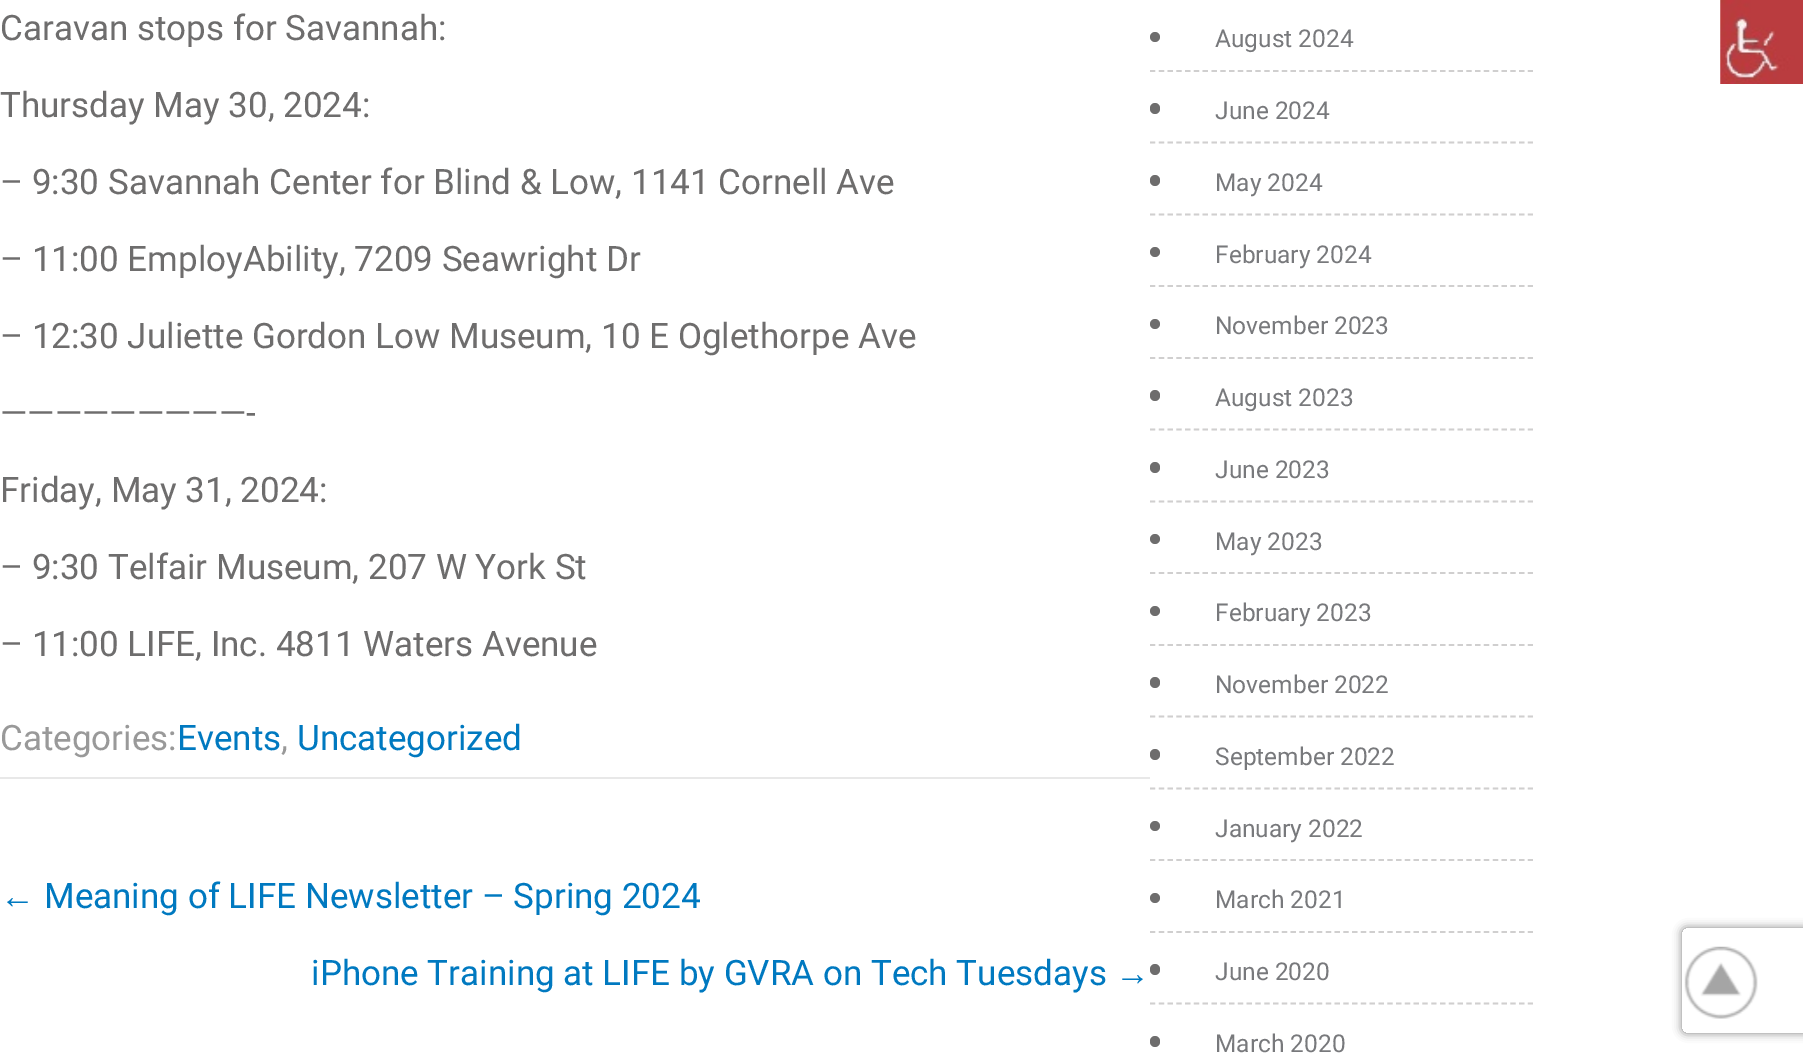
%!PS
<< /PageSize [1803 1056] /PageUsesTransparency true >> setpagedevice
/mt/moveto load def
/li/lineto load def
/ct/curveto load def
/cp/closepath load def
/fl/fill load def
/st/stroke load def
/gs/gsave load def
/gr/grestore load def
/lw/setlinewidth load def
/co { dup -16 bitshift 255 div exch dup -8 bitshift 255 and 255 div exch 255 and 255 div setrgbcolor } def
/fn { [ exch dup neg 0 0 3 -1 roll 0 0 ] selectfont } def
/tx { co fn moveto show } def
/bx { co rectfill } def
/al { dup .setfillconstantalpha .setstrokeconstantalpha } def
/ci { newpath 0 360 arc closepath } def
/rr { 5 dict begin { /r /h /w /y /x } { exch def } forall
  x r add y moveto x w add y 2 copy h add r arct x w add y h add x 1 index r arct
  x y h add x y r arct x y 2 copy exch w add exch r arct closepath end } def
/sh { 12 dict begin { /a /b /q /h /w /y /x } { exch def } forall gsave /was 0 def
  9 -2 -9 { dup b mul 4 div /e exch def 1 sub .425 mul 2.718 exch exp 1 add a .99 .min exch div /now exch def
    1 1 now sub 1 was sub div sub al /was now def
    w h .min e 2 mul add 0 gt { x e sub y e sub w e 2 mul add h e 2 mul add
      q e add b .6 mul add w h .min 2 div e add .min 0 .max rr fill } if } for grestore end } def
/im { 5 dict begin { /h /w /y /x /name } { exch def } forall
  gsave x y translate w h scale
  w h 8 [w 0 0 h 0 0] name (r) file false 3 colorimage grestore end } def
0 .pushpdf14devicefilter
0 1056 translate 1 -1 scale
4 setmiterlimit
0 0 1803 1056 16#FFFFFF bx
0 777 1150 2 16#E8E8E8 bx
16#D0CFCF co
1.8 lw
[5.25 3.54] 0 setdash
1150 71 mt 1533 71 li st
16#6E6D6D co
1155 37 5 ci fl
16#D0CFCF co
1150 142.5 mt 1533 142.5 li st
16#6E6D6D co
1150 103 10 11 5 rr fl
16#D0CFCF co
1150 214.5 mt 1533 214.5 li st
16#6E6D6D co
1150 175 10 11 5 rr fl
16#D0CFCF co
1150 286 mt 1533 286 li st
16#6E6D6D co
1155 252 5 ci fl
16#D0CFCF co
1150 358 mt 1533 358 li st
16#6E6D6D co
1155 324 5 ci fl
16#D0CFCF co
1150 429.5 mt 1533 429.5 li st
16#6E6D6D co
1150 390 10 11 5 rr fl
16#D0CFCF co
1150 501.5 mt 1533 501.5 li st
16#6E6D6D co
1150 462 10 11 5 rr fl
16#D0CFCF co
1150 573 mt 1533 573 li st
16#6E6D6D co
1155 539 5 ci fl
16#D0CFCF co
1150 645 mt 1533 645 li st
16#6E6D6D co
1155 611 5 ci fl
16#D0CFCF co
1150 716.5 mt 1533 716.5 li st
16#6E6D6D co
1150 677 10 11 5 rr fl
16#D0CFCF co
1150 788.5 mt 1533 788.5 li st
16#6E6D6D co
1150 749 10 11 5 rr fl
16#D0CFCF co
1150 860 mt 1533 860 li st
16#6E6D6D co
1155 826 5 ci fl
16#D0CFCF co
1150 932 mt 1533 932 li st
16#6E6D6D co
1155 898 5 ci fl
16#D0CFCF co
1150 1003.5 mt 1533 1003.5 li st
16#6E6D6D co
1150 964 10 11 5 rr fl
1150 1036 10 11 5 rr fl
(media/1.raw) 1684 946 74 73 im
(media/2.raw) 1720 0 83 84 im
gs
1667 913 mt 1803 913 li 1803 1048 li 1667 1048 li cp 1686 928 mt 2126 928 li 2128 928 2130 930 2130 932 ct 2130 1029 li 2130 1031 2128 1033 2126 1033 ct 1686 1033 li 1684 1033 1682 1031 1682 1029 ct 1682 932 li 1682 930 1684 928 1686 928 ct cp eoclip newpath
16#808080 co
1682 928 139 105 4 4.5 1 sh
gr
(Caravan stops for Savannah:) 0 40 /Roboto-Regular 35 16#6E6D6D tx
(Thursday May 30, 2024:) 0 117 /Roboto-Regular 35 16#6E6D6D tx
(– 9:30 Savannah Center for Blind & Low, 1141 Cornell Ave) 0 194 /Roboto-Regular 35 16#6E6D6D tx
(– 11:00 EmployAbility, 7209 Seawright Dr) 0 271 /Roboto-Regular 35 16#6E6D6D tx
(– 12:30 Juliette Gordon Low Museum, 10 E Oglethorpe Ave) 0 348 /Roboto-Regular 35 16#6E6D6D tx
(—————————-) 0 425 /Roboto-Regular 35 16#6E6D6D tx
(Friday, May 31, 2024:) 0 502 /Roboto-Regular 35 16#6E6D6D tx
(– 9:30 Telfair Museum, 207 W York St) 0 579 /Roboto-Regular 35 16#6E6D6D tx
(– 11:00 LIFE, Inc. 4811 Waters Avenue) 0 656 /Roboto-Regular 35 16#6E6D6D tx
(Categories:) 0 750 /Roboto-Regular 35 16#999999 tx
(Events) 177 750 /Roboto-Regular 35 16#0079C0 tx
(,) 281 750 /Roboto-Regular 35 16#999999 tx
(Uncategorized) 297 750 /Roboto-Regular 35 16#0079C0 tx
(←) 0 908 /LiberationSerif-Regular 35 16#0079C0 tx
(Meaning of LIFE Newsletter – Spring 2024) 44 908 /Roboto-Regular 35 16#0079C0 tx
(iPhone Training at LIFE by GVRA on Tech Tuesdays) 311 985 /Roboto-Regular 35 16#0079C0 tx
(→) 1115 985 /LiberationSerif-Regular 35 16#0079C0 tx
(August 2024) 1215 47 /Roboto-Regular 24.5 16#78797C tx
(June 2024) 1215 119 /Roboto-Regular 24.5 16#78797C tx
(May 2024) 1215 191 /Roboto-Regular 24.5 16#78797C tx
(February 2024) 1215 263 /Roboto-Regular 24.5 16#78797C tx
(November 2023) 1215 334 /Roboto-Regular 24.5 16#78797C tx
(August 2023) 1215 406 /Roboto-Regular 24.5 16#78797C tx
(June 2023) 1215 478 /Roboto-Regular 24.5 16#78797C tx
(May 2023) 1215 550 /Roboto-Regular 24.5 16#78797C tx
(February 2023) 1215 621 /Roboto-Regular 24.5 16#78797C tx
(November 2022) 1215 693 /Roboto-Regular 24.5 16#78797C tx
(September 2022) 1215 765 /Roboto-Regular 24.5 16#78797C tx
(January 2022) 1215 837 /Roboto-Regular 24.5 16#78797C tx
(March 2021) 1215 908 /Roboto-Regular 24.5 16#78797C tx
(June 2020) 1215 980 /Roboto-Regular 24.5 16#78797C tx
(March 2020) 1215 1052 /Roboto-Regular 24.5 16#78797C tx
.poppdf14devicefilter showpage
